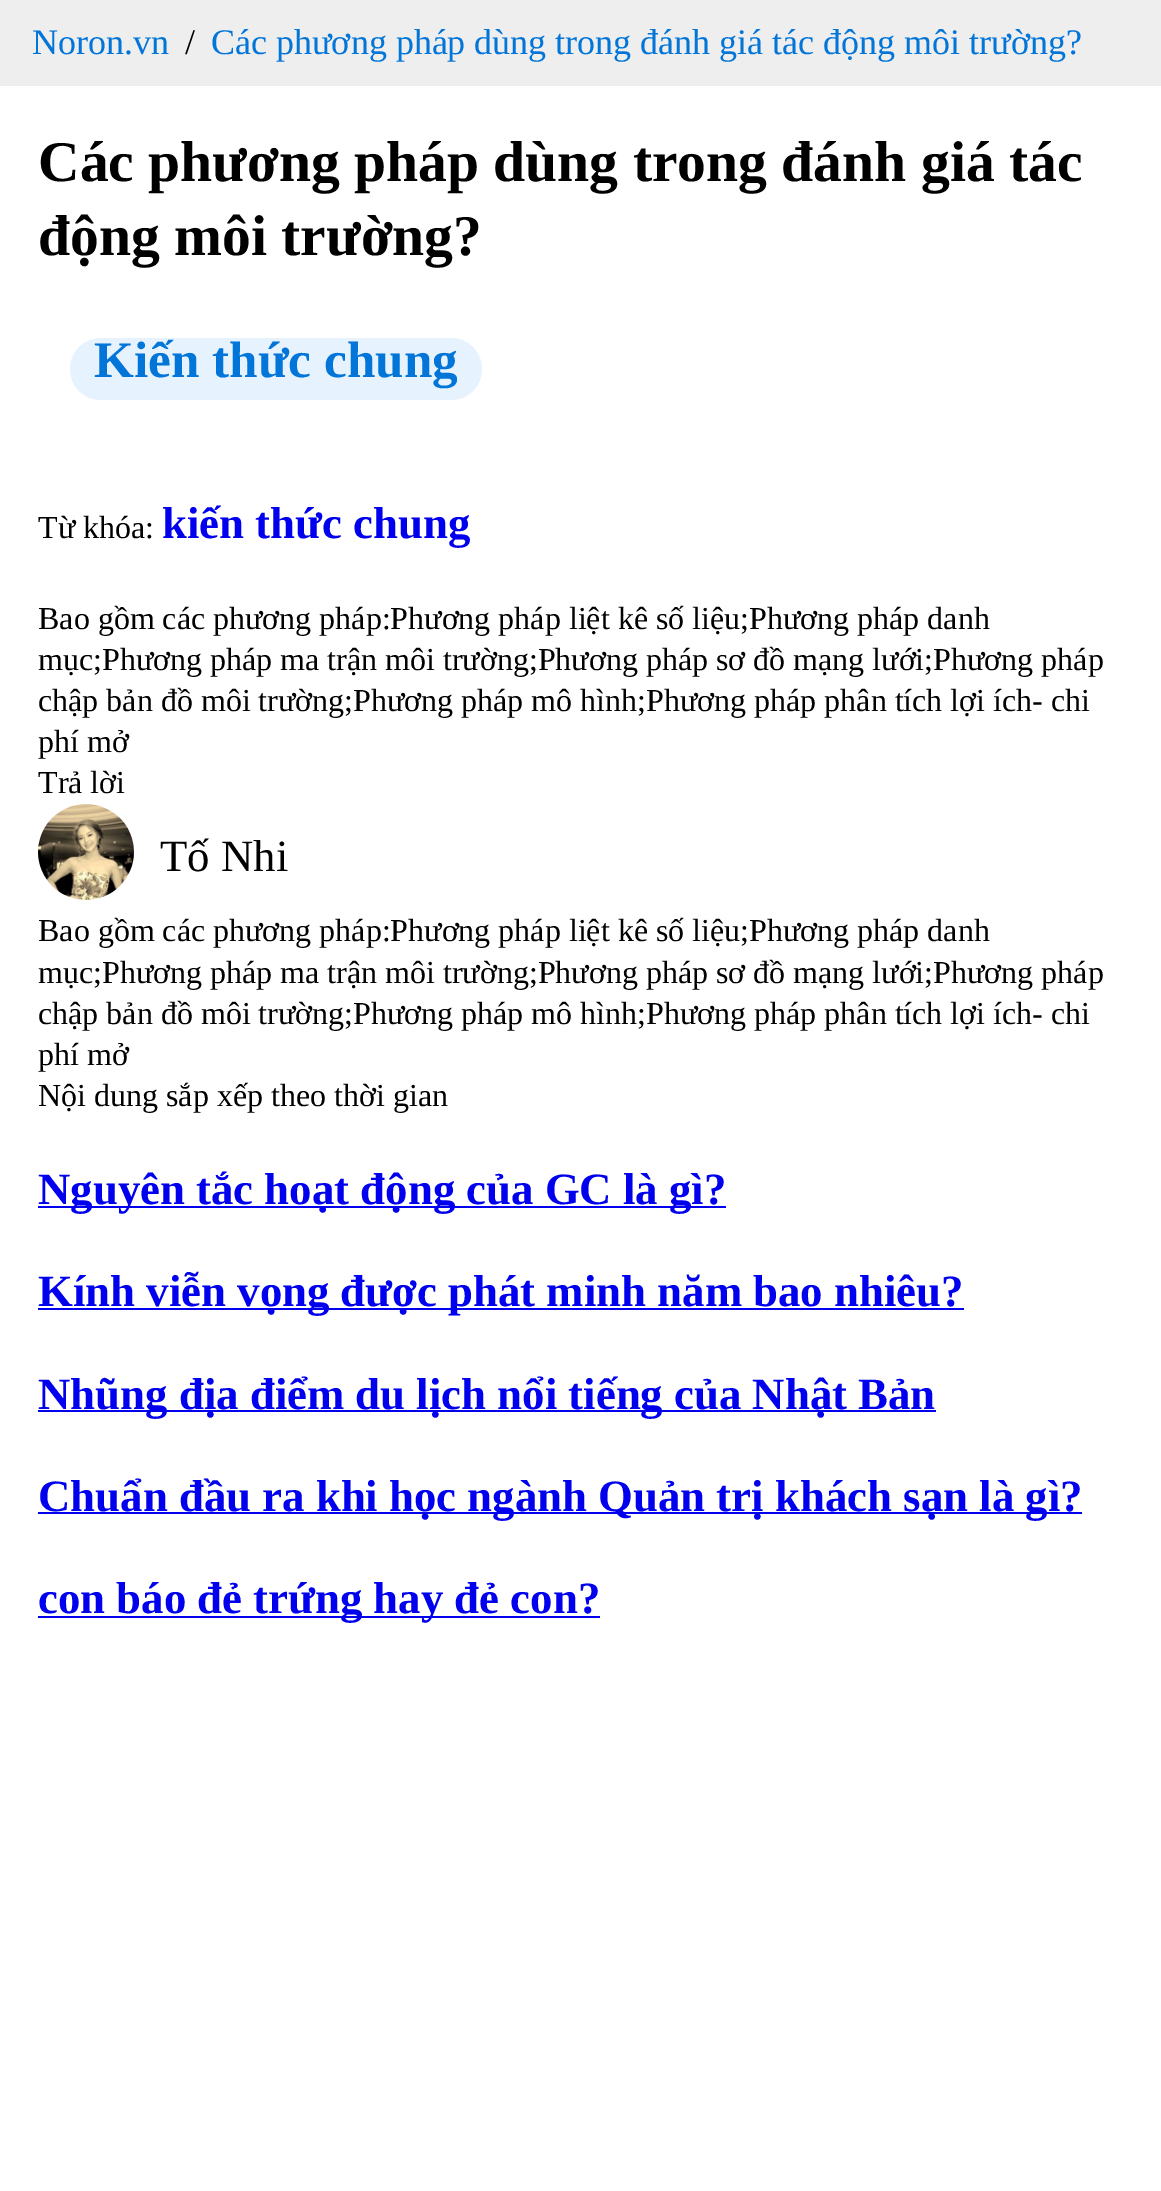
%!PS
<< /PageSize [1161 2191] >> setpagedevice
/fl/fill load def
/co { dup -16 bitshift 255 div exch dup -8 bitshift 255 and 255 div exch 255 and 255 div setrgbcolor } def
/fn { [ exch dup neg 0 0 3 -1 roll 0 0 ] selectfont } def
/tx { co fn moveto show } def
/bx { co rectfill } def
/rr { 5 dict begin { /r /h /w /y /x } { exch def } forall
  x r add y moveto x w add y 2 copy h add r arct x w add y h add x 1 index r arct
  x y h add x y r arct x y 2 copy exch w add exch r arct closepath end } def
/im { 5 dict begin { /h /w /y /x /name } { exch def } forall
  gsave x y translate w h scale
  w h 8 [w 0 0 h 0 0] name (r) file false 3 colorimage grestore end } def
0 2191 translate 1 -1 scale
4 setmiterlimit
0 0 1161 2191 16#FFFFFF bx
0 0 1161 86 16#EEEEEE bx
16#E6F3FF co
70 338 412 62 31 rr fl
(media/1.raw) 38 804 96 96 im
38 1206 688 2 16#0000EE bx
38 1308 926 2 16#0000EE bx
38 1410 898 2 16#0000EE bx
38 1512 1044 2 16#0000EE bx
38 1616 562 2 16#0000EE bx
(Noron.vn) 32 54 /LiberationSerif-Regular 36 16#0275D8 tx
(/) 185 54 /LiberationSerif-Regular 36 16#000000 tx
(Các phương pháp dùng trong đánh giá tác động môi trường?) 211 54 /LiberationSerif-Regular 36 16#0275D8 tx
(Các phương pháp dùng trong đánh giá tác) 38 181 /LiberationSerif-Bold 57.6 16#000000 tx
(động môi trường?) 38 255 /LiberationSerif-Bold 57.6 16#000000 tx
(Kiến thức chung) 94 377 /LiberationSerif-Bold 51.25 16#0275D8 tx
(Từ khóa:) 38 538 /LiberationSerif-Regular 32 16#000000 tx
(kiến thức chung) 162 538 /LiberationSerif-Bold 44.8 16#0000EE tx
(Bao gồm các phương pháp:Phương pháp liệt kê số liệu;Phương pháp danh) 38 629 /LiberationSerif-Regular 32 16#000000 tx
(mục;Phương pháp ma trận môi trường;Phương pháp sơ đồ mạng lưới;Phương pháp) 38 670 /LiberationSerif-Regular 32 16#000000 tx
(chập bản đồ môi trường;Phương pháp mô hình;Phương pháp phân tích lợi ích- chi) 38 711 /LiberationSerif-Regular 32 16#000000 tx
(phí mở) 38 752 /LiberationSerif-Regular 32 16#000000 tx
(Trả lời) 38 793 /LiberationSerif-Regular 32 16#000000 tx
(Tố Nhi) 160 871 /LiberationSerif-Regular 44.8 16#000000 tx
(Bao gồm các phương pháp:Phương pháp liệt kê số liệu;Phương pháp danh) 38 941 /LiberationSerif-Regular 32 16#000000 tx
(mục;Phương pháp ma trận môi trường;Phương pháp sơ đồ mạng lưới;Phương pháp) 38 983 /LiberationSerif-Regular 32 16#000000 tx
(chập bản đồ môi trường;Phương pháp mô hình;Phương pháp phân tích lợi ích- chi) 38 1024 /LiberationSerif-Regular 32 16#000000 tx
(phí mở) 38 1065 /LiberationSerif-Regular 32 16#000000 tx
(Nội dung sắp xếp theo thời gian) 38 1106 /LiberationSerif-Regular 32 16#000000 tx
(Nguyên tắc hoạt động của GC là gì?) 38 1204 /LiberationSerif-Bold 44.8 16#0000EE tx
(Kính viễn vọng được phát minh năm bao nhiêu?) 38 1306 /LiberationSerif-Bold 44.8 16#0000EE tx
(Nhũng địa điểm du lịch nổi tiếng của Nhật Bản) 38 1409 /LiberationSerif-Bold 44.8 16#0000EE tx
(Chuẩn đầu ra khi học ngành Quản trị khách sạn là gì?) 38 1511 /LiberationSerif-Bold 44.8 16#0000EE tx
(con báo đẻ trứng hay đẻ con?) 38 1613 /LiberationSerif-Bold 44.8 16#0000EE tx
showpage
